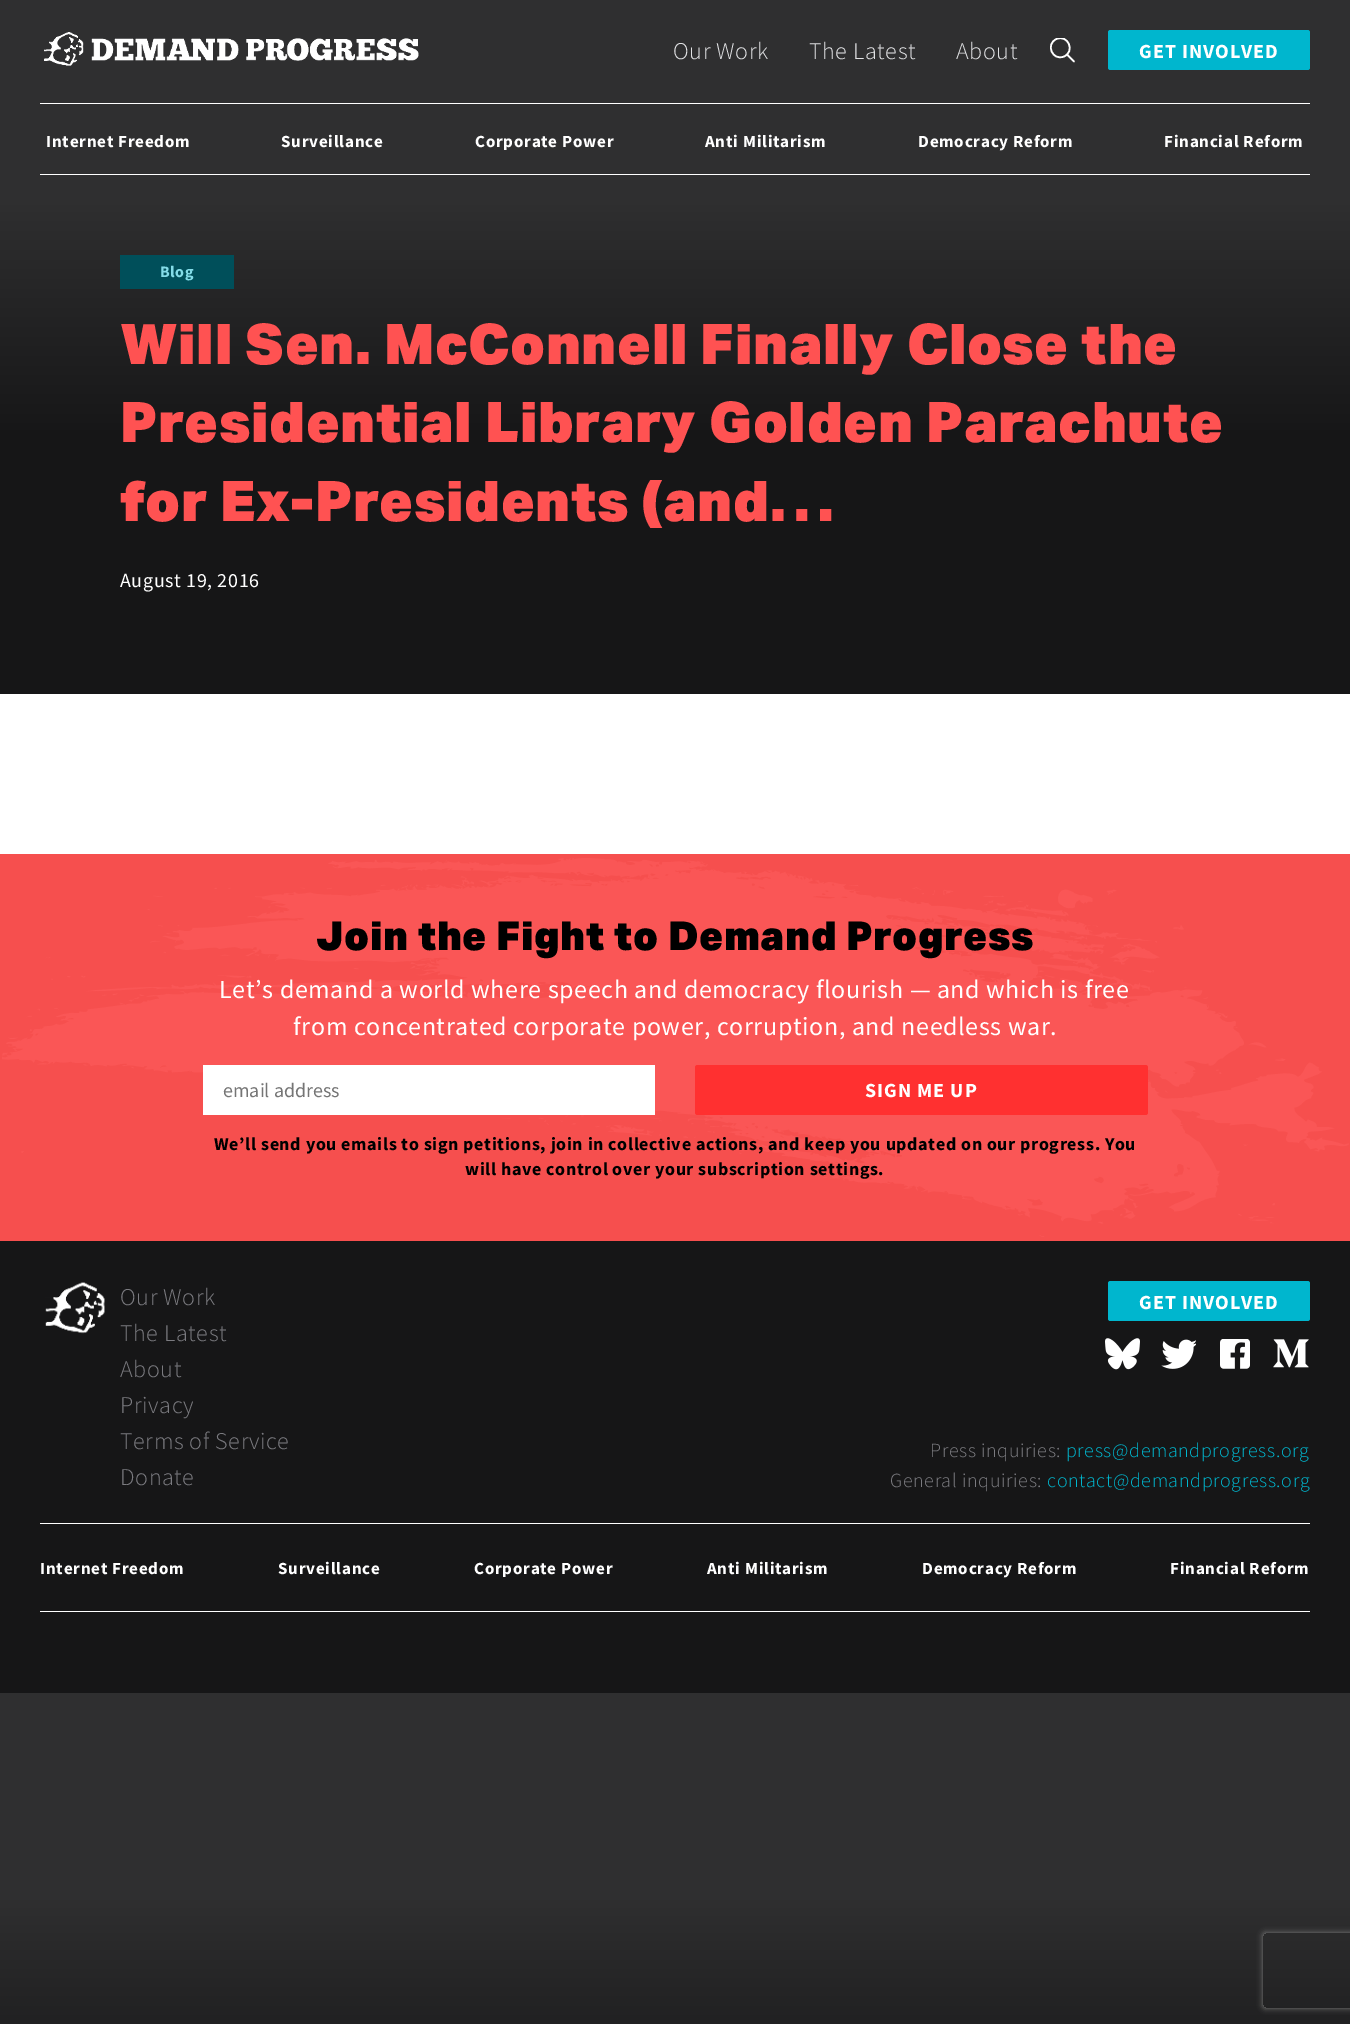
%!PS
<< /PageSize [1350 2024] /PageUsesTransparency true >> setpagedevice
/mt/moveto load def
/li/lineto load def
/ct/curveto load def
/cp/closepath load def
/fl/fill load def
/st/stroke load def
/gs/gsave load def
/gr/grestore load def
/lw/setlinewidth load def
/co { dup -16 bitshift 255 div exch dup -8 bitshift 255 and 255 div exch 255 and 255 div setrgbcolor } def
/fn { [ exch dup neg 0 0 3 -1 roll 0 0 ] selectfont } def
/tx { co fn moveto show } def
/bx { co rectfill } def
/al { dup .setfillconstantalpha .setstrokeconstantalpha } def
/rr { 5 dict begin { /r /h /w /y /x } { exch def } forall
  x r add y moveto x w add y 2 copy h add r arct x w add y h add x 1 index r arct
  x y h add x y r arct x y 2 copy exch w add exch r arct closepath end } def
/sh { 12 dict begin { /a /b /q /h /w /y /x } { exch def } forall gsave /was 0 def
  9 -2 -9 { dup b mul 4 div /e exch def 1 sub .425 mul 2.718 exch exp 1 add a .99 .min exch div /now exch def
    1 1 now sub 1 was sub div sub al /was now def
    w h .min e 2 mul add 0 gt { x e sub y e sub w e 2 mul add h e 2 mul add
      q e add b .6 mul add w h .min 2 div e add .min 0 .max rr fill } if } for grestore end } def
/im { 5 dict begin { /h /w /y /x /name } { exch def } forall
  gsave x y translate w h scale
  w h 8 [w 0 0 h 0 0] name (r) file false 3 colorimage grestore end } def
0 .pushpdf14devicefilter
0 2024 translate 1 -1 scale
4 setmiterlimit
0 0 1350 2024 16#FFFFFF bx
gs 0 0 mt 1350 0 li 1350 1693 li 0 1693 li cp clip newpath
<< /ShadingType 2 /ColorSpace /DeviceRGB /Coords [675 0 675 1693] /Extend [true true] /Function << /FunctionType 3 /Domain [0 1] /Functions [<< /FunctionType 2 /Domain [0 1] /C0 [.184 .184 .188] /C1 [.184 .184 .188] /N 1 >> << /FunctionType 2 /Domain [0 1] /C0 [.184 .184 .188] /C1 [.086 .086 .09] /N 1 >> << /FunctionType 2 /Domain [0 1] /C0 [.086 .086 .09] /C1 [.086 .086 .09] /N 1 >>] /Bounds [.12 .26] /Encode [0 1 0 1 0 1] >> >> shfill gr
gs 0 1693 mt 1350 1693 li 1350 2024 li 0 2024 li cp clip newpath
<< /ShadingType 2 /ColorSpace /DeviceRGB /Coords [675 1693 675 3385] /Extend [true true] /Function << /FunctionType 3 /Domain [0 1] /Functions [<< /FunctionType 2 /Domain [0 1] /C0 [.184 .184 .188] /C1 [.184 .184 .188] /N 1 >> << /FunctionType 2 /Domain [0 1] /C0 [.184 .184 .188] /C1 [.086 .086 .09] /N 1 >> << /FunctionType 2 /Domain [0 1] /C0 [.086 .086 .09] /C1 [.086 .086 .09] /N 1 >>] /Bounds [.12 .26] /Encode [0 1 0 1 0 1] >> >> shfill gr
(media/1.raw) 44 32 375 34 im
gs
1050 38 25 25 rectclip
1.6 lw
1 setlinecap
1 setlinejoin
1056.5 39 mt 1068 34 1075.5 51.5 1064 56.5 ct 1052.5 61.5 1045 44 1056.5 39 ct cp st
gr
1.6 lw
1 setlinecap
1 setlinejoin
1067 54.5 mt 1074 61.5 li st
16#00B6CE co
1108 30 202 40 2.5 rr fl
40 103 1270 1 16#FFFFFF bx
40 174 1270 1 16#FFFFFF bx
120 255 114 34 16#004F5A bx
0 694 1350 160 16#FFFFFF bx
0 854 1350 387 16#F64F4E bx
(media/2.raw) 2 858 1347 379 im
203 1065 452 50 16#FFFFFF bx
16#FF3030 co
695 1065 453 50 2.5 rr fl
gs
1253 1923 mt 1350 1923 li 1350 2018 li 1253 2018 li cp 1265.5 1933 mt 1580.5 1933 li 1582 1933 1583 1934 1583 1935.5 ct 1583 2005.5 li 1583 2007 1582 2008 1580.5 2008 ct 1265.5 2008 li 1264 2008 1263 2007 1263 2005.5 ct 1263 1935.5 li 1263 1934 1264 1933 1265.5 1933 ct cp eoclip newpath
16#808080 co
1263 1933 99 75 2.5 3 1 sh
gr
(media/3.raw) 45 1282 60 52 im
16#00B6CE co
1108 1281 202 40 2.5 rr fl
(media/4.raw) 1105 1338 35 32 im
(media/5.raw) 1161 1339 35 30 im
(media/6.raw) 1220 1339 30 30 im
(media/7.raw) 1273 1339 36 29 im
40 1523 1270 1 16#FFFFFF bx
40 1611 1270 1 16#FFFFFF bx
/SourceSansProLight-Light 24 fn
16#E1E2E4 co
673 59 mt .62 0 (Our Work) ashow
809 59 mt .62 0 (The Latest) ashow
956 59 mt .62 0 (About) ashow
/SourceSansPro-Bold 20 fn
16#FFFFFF co
1139 58 mt 1 0 (GET INVOLVED) ashow
/SourceSansPro-Bold 17 fn
46 147 mt .75 0 (Internet Freedom) ashow
281 147 mt .75 0 (Surveillance) ashow
475 147 mt .75 0 (Corporate Power) ashow
705 147 mt .75 0 (Anti Militarism) ashow
918 147 mt .75 0 (Democracy Reform) ashow
1164 147 mt .75 0 (Financial Reform) ashow
/SourceSansPro-Bold 16 fn
16#84DCE8 co
160 277 mt .62 0 (Blog) ashow
/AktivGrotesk-Black 56 fn
16#FF5252 co
120 364 mt .62 0 (Will Sen. McConnell Finally Close the) ashow
120 442 mt .62 0 (Presidential Library Golden Parachute) ashow
120 521 mt .62 0 (for Ex-Presidents \(and…) ashow
/SourceSansPro-Regular 20 fn
16#FFFFFF co
120 587 mt .62 0 (August 19, 2016) ashow
/AktivGrotesk-Black 40 fn
16#000000 co
316 950 mt .62 0 (Join the Fight to Demand Progress) ashow
/SourceSansPro-Regular 26 fn
16#FFFFFF co
219 998 mt .62 0 (Let’s demand a world where speech and democracy flourish — and which is free) ashow
293 1035 mt .62 0 (from concentrated corporate power, corruption, and needless war.) ashow
(email address) 223 1097 /SourceSansPro-Regular 20 16#757575 tx
/SourceSansPro-Bold 20 fn
16#FFFFFF co
865 1097 mt 1 0 (SIGN ME UP) ashow
/SourceSansPro-Bold 18 fn
16#000000 co
214 1150 mt .62 0 (We’ll send you emails to sign petitions, join in collective actions, and keep you updated on our progress. You) ashow
465 1175 mt .62 0 (will have control over your subscription settings.) ashow
/SourceSansProLight-Light 24 fn
16#7B7B80 co
120 1305 mt .62 0 (Our Work) ashow
/SourceSansPro-Bold 20 fn
16#FFFFFF co
1139 1309 mt 1 0 (GET INVOLVED) ashow
/SourceSansProLight-Light 24 fn
16#7B7B80 co
120 1341 mt .62 0 (The Latest) ashow
120 1377 mt .62 0 (About) ashow
120 1413 mt .62 0 (Privacy) ashow
120 1449 mt .62 0 (Terms of Service) ashow
120 1485 mt .62 0 (Donate) ashow
/SourceSansProLight-Light 20 fn
930 1457 mt .62 0 (Press inquiries:) ashow
16#00B6CE co
1066 1457 mt .62 0 (press@demandprogress.org) ashow
16#7B7B80 co
890 1487 mt .62 0 (General inquiries:) ashow
16#00B6CE co
1047 1487 mt .62 0 (contact@demandprogress.org) ashow
/SourceSansPro-Bold 17 fn
16#FFFFFF co
40 1574 mt .75 0 (Internet Freedom) ashow
278 1574 mt .75 0 (Surveillance) ashow
474 1574 mt .75 0 (Corporate Power) ashow
707 1574 mt .75 0 (Anti Militarism) ashow
922 1574 mt .75 0 (Democracy Reform) ashow
1170 1574 mt .75 0 (Financial Reform) ashow
.poppdf14devicefilter showpage
